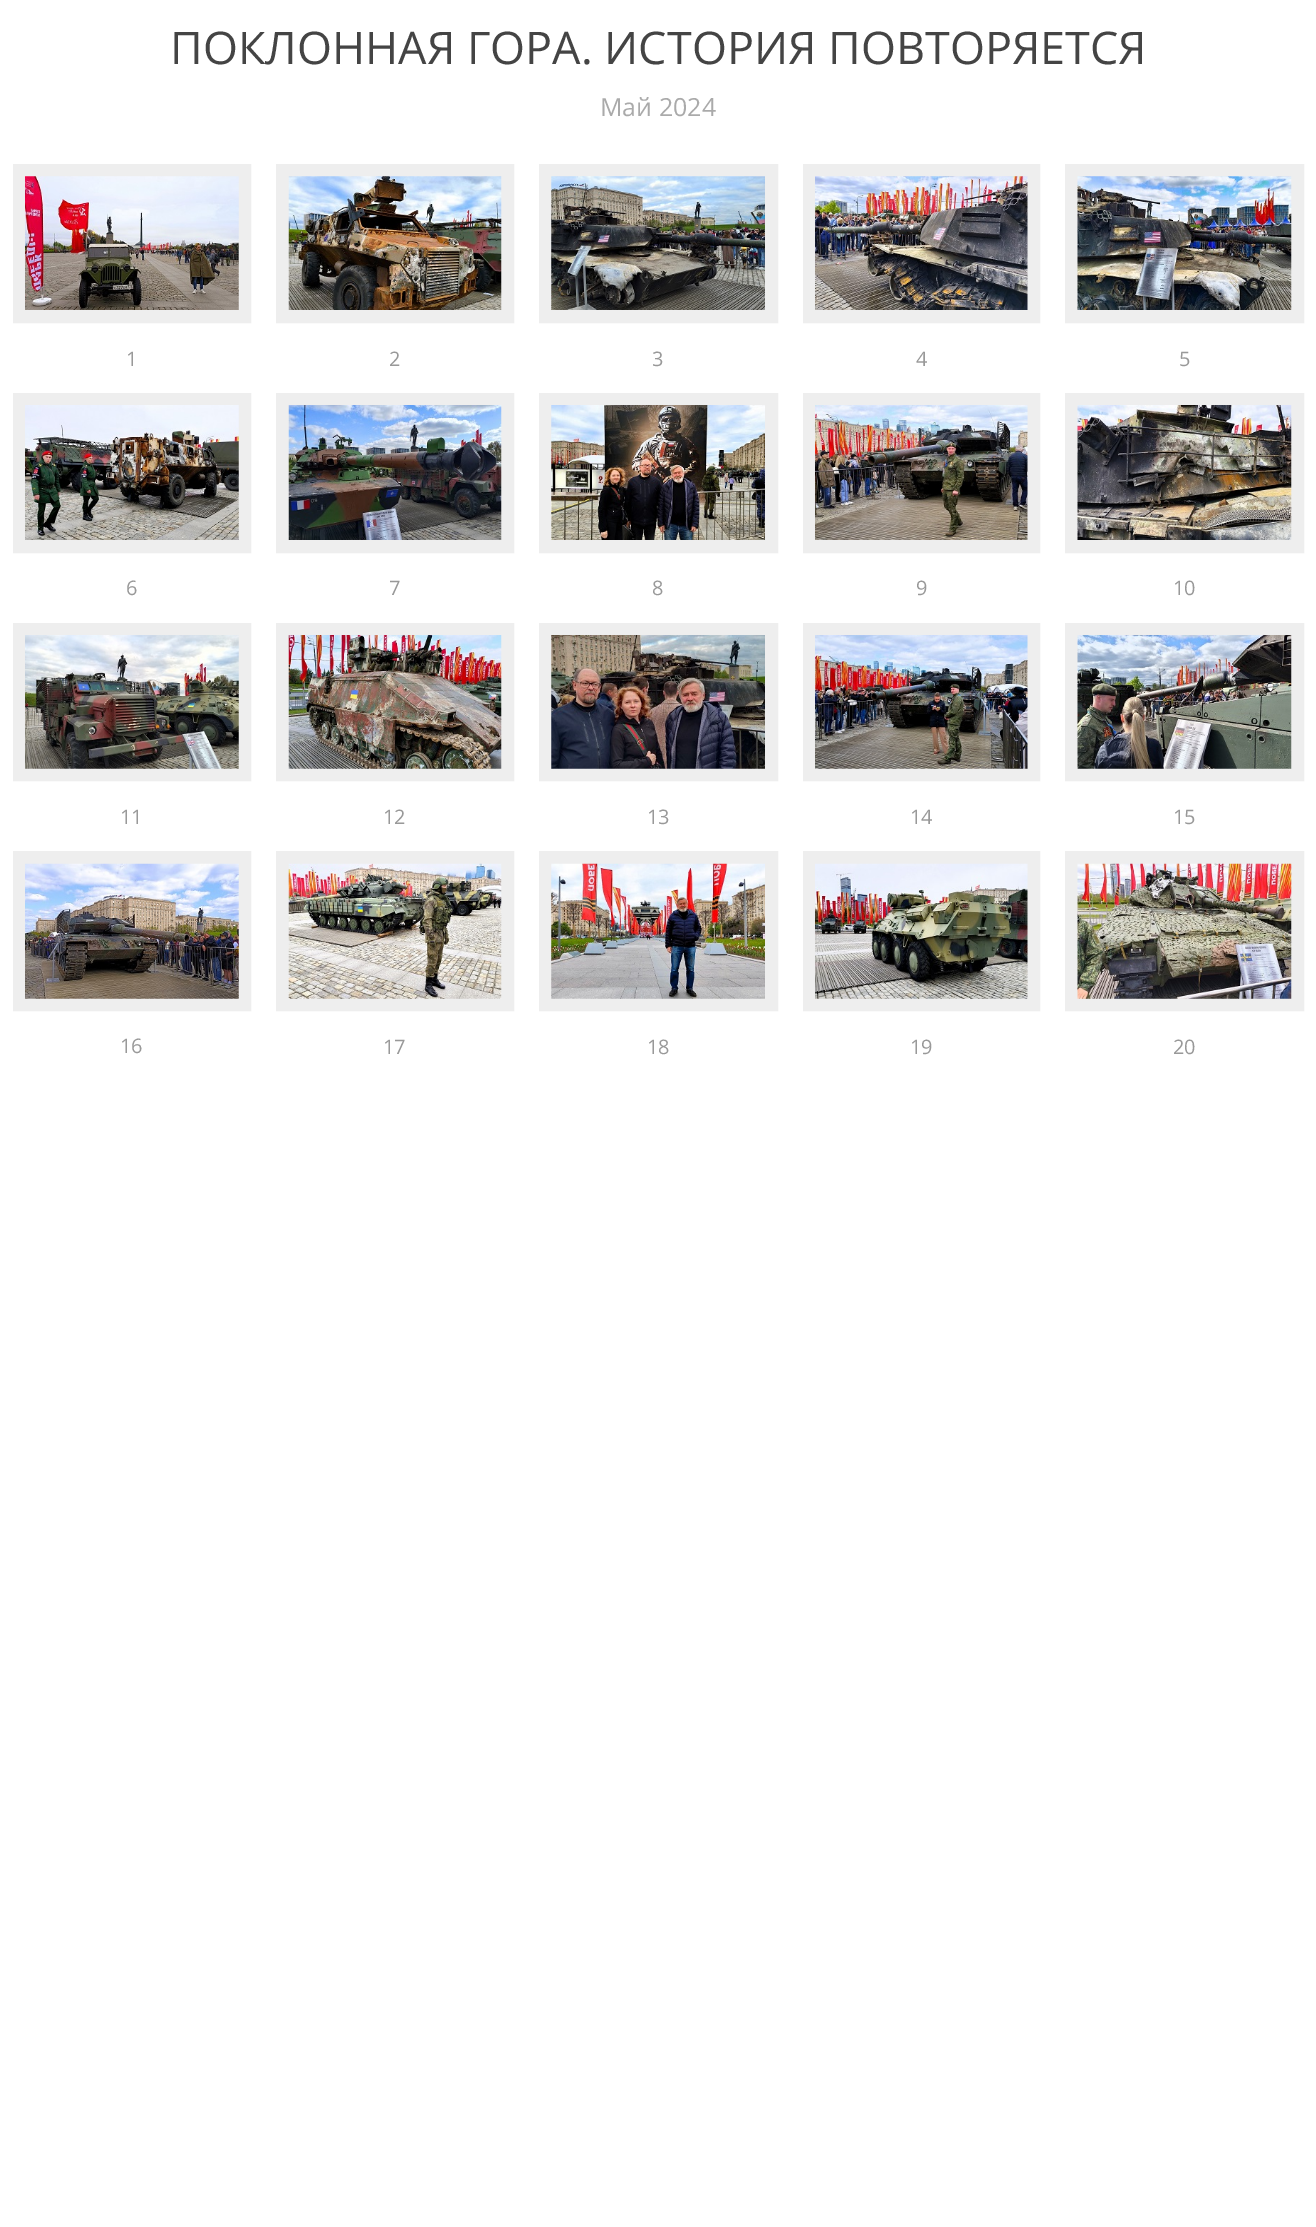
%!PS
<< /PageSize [1316 2227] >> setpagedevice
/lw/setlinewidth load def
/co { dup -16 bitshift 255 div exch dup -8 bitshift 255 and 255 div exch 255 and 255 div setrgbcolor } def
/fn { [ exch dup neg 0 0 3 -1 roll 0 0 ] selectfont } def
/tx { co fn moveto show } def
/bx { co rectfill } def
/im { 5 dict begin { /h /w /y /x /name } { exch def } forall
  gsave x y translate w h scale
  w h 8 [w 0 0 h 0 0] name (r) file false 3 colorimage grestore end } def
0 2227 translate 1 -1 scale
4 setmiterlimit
0 0 1316 2227 16#FFFFFF bx
16#EEEEEE co
13 lw
19.5 170.5 225 146 rectstroke
(media/1.raw) 25 176 214 134 im
282.5 170.5 225 146 rectstroke
(media/2.raw) 288 176 214 134 im
545.5 170.5 226 146 rectstroke
(media/3.raw) 551 176 214 134 im
809.5 170.5 224 146 rectstroke
(media/4.raw) 815 176 213 134 im
1071.5 170.5 226 146 rectstroke
(media/5.raw) 1077 176 215 134 im
19.5 399.5 225 147 rectstroke
(media/6.raw) 25 405 214 135 im
282.5 399.5 225 147 rectstroke
(media/7.raw) 288 405 214 135 im
545.5 399.5 226 147 rectstroke
(media/8.raw) 551 405 214 135 im
809.5 399.5 224 147 rectstroke
(media/9.raw) 815 405 213 135 im
1071.5 399.5 226 147 rectstroke
(media/10.raw) 1077 405 215 135 im
19.5 629.5 225 145 rectstroke
(media/11.raw) 25 635 214 134 im
282.5 629.5 225 145 rectstroke
(media/12.raw) 288 635 214 134 im
545.5 629.5 226 145 rectstroke
(media/13.raw) 551 635 214 134 im
809.5 629.5 224 145 rectstroke
(media/14.raw) 815 635 213 134 im
1071.5 629.5 226 145 rectstroke
(media/15.raw) 1077 635 215 134 im
19.5 857.5 225 147 rectstroke
(media/16.raw) 25 863 214 136 im
282.5 857.5 225 147 rectstroke
(media/17.raw) 288 863 214 136 im
545.5 857.5 226 147 rectstroke
(media/18.raw) 551 863 214 136 im
809.5 857.5 224 147 rectstroke
(media/19.raw) 815 863 213 136 im
1071.5 857.5 226 147 rectstroke
(media/20.raw) 1077 863 215 136 im
(ПОКЛОННАЯ ГОРА. ИСТОРИЯ ПОВТОРЯЕТСЯ) 170 64 /OpenSans-Regular 45 16#444444 tx
(Май 2024) 600 116 /OpenSans-Regular 25 16#AAAAAA tx
(1) 126 366 /OpenSans-Regular 20 16#999999 tx
(2) 389 366 /OpenSans-Regular 20 16#999999 tx
(3) 652 366 /OpenSans-Regular 20 16#999999 tx
(4) 916 366 /OpenSans-Regular 20 16#999999 tx
(5) 1179 366 /OpenSans-Regular 20 16#999999 tx
(6) 126 595 /OpenSans-Regular 20 16#999999 tx
(7) 389 595 /OpenSans-Regular 20 16#999999 tx
(8) 652 595 /OpenSans-Regular 20 16#999999 tx
(9) 916 595 /OpenSans-Regular 20 16#999999 tx
(10) 1173 595 /OpenSans-Regular 20 16#999999 tx
(11) 120 824 /OpenSans-Regular 20 16#999999 tx
(12) 383 824 /OpenSans-Regular 20 16#999999 tx
(13) 647 824 /OpenSans-Regular 20 16#999999 tx
(14) 910 824 /OpenSans-Regular 20 16#999999 tx
(15) 1173 824 /OpenSans-Regular 20 16#999999 tx
(16) 120 1053 /OpenSans-Regular 20 16#999999 tx
(17) 383 1054 /OpenSans-Regular 20 16#999999 tx
(18) 647 1054 /OpenSans-Regular 20 16#999999 tx
(19) 910 1054 /OpenSans-Regular 20 16#999999 tx
(20) 1173 1054 /OpenSans-Regular 20 16#999999 tx
showpage
